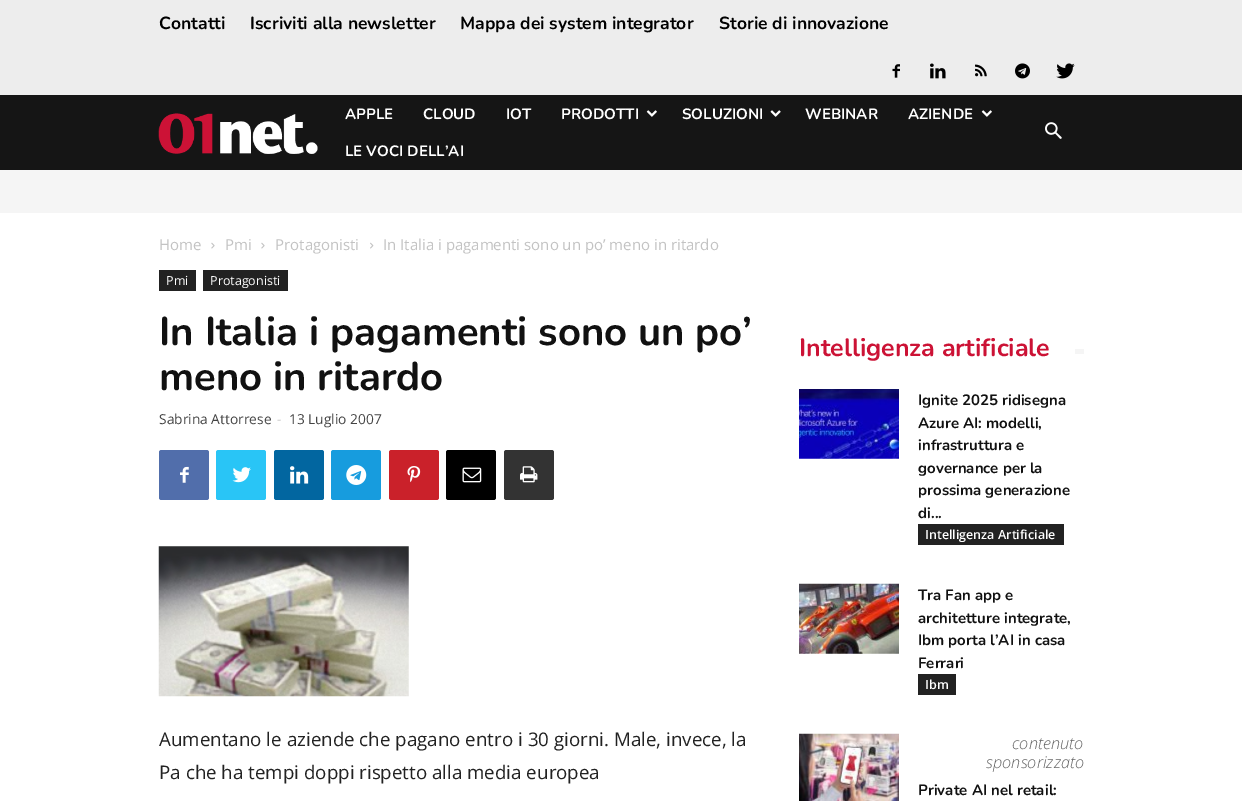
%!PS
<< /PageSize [1242 801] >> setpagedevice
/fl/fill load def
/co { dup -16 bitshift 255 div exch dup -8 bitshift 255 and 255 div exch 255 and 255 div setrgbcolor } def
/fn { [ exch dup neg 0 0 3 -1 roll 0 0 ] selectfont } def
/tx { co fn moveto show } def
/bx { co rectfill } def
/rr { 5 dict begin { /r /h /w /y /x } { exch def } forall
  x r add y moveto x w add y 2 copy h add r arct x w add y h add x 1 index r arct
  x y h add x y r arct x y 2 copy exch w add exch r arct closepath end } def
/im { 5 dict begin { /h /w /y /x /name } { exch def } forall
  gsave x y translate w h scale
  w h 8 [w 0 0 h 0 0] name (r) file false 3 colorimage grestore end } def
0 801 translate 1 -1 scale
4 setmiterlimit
0 0 1242 801 16#FFFFFF bx
0 0 1242 95 16#EDEDED bx
(media/1.raw) 892 64 8 14 im
(media/2.raw) 930 63 16 16 im
(media/3.raw) 975 64 12 13 im
(media/4.raw) 1015 63 15 16 im
(media/5.raw) 1056 63 19 16 im
0 95 1242 75 16#151515 bx
(media/6.raw) 158 113 160 41 im
(media/7.raw) 646 110 11 7 im
(media/8.raw) 770 110 11 7 im
(media/7.raw) 981 110 11 7 im
(media/9.raw) 1045 122 17 17 im
0 170 1242 43 16#F5F5F5 bx
(media/10.raw) 211 242 4 7 im
(media/10.raw) 261 242 4 7 im
(media/11.raw) 370 242 4 7 im
159 270 37 21 16#222222 bx
203 270 85 21 16#222222 bx
16#516EAB co
159 450 50 50 2.5 rr fl
(media/12.raw) 180 466 9 17 im
16#29C5F6 co
216 450 50 50 2.5 rr fl
(media/13.raw) 232 467 19 16 im
16#0266A0 co
274 450 50 50 2.5 rr fl
(media/14.raw) 290 466 19 18 im
16#179CDE co
331 450 50 50 2.5 rr fl
(media/15.raw) 346 465 21 20 im
16#CA212A co
389 450 50 50 2.5 rr fl
(media/16.raw) 407 466 14 17 im
16#000000 co
446 450 50 50 2.5 rr fl
(media/17.raw) 462 467 20 16 im
16#333333 co
504 450 50 50 2.5 rr fl
(media/18.raw) 520 466 18 17 im
(media/19.raw) 158 546 251 151 im
1075 349 9 5 16#F5F5F5 bx
(media/20.raw) 799 389 100 70 im
918 524 146 21 16#222222 bx
(media/21.raw) 799 583 100 71 im
918 674 38 21 16#222222 bx
(media/22.raw) 799 733 100 68 im
(Contatti) 159 29 /Nunito-ExtraLight 17.5 16#000000 tx
(Iscriviti alla newsletter) 250 29 /Nunito-ExtraLight 17.5 16#000000 tx
(Mappa dei system integrator) 460 29 /Nunito-ExtraLight 17.5 16#000000 tx
(Storie di innovazione) 719 29 /Nunito-ExtraLight 17.5 16#000000 tx
(APPLE) 345 119 /Nunito-ExtraLight 15 16#FFFFFF tx
(CLOUD) 423 119 /Nunito-ExtraLight 15 16#FFFFFF tx
(IOT) 506 119 /Nunito-ExtraLight 15 16#FFFFFF tx
(PRODOTTI) 561 119 /Nunito-ExtraLight 15 16#FFFFFF tx
(SOLUZIONI) 682 119 /Nunito-ExtraLight 15 16#FFFFFF tx
(WEBINAR) 805 119 /Nunito-ExtraLight 15 16#FFFFFF tx
(AZIENDE) 908 119 /Nunito-ExtraLight 15 16#FFFFFF tx
(LE VOCI DELL’AI) 345 156 /Nunito-ExtraLight 15 16#FFFFFF tx
(Home) 159 250 /OpenSans-Regular 15 16#C3C3C3 tx
(Pmi) 225 250 /OpenSans-Regular 15 16#C3C3C3 tx
(Protagonisti) 275 250 /OpenSans-Regular 15 16#C3C3C3 tx
(In Italia i pagamenti sono un po’ meno in ritardo) 383 250 /OpenSans-Regular 15 16#C3C3C3 tx
(Pmi) 166 285 /OpenSans-Regular 12.5 16#FFFFFF tx
(Protagonisti) 210 285 /OpenSans-Regular 12.5 16#FFFFFF tx
(In Italia i pagamenti sono un po’) 159 345 /Nunito-ExtraLight 40 16#111111 tx
(meno in ritardo) 159 390 /Nunito-ExtraLight 40 16#111111 tx
(Sabrina Attorrese) 159 424 /OpenSans-Regular 13.75 16#444444 tx
(-) 277 424 /OpenSans-Regular 13.75 16#CCCCCC tx
(13 Luglio 2007) 289 424 /OpenSans-Regular 13.75 16#444444 tx
(Aumentano le aziende che pagano entro i 30 giorni. Male, invece, la) 159 746 /OpenSans-Regular 18.75 16#222222 tx
(Pa che ha tempi doppi rispetto alla media europea) 159 779 /OpenSans-Regular 18.75 16#222222 tx
(Intelligenza artificiale) 799 356 /Nunito-ExtraLight 25 16#CC1235 tx
(Ignite 2025 ridisegna) 918 405 /Nunito-ExtraLight 15 16#111111 tx
(Azure AI: modelli,) 918 428 /Nunito-ExtraLight 15 16#111111 tx
(infrastruttura e) 918 450 /Nunito-ExtraLight 15 16#111111 tx
(governance per la) 918 473 /Nunito-ExtraLight 15 16#111111 tx
(prossima generazione) 918 495 /Nunito-ExtraLight 15 16#111111 tx
(di...) 918 518 /Nunito-ExtraLight 15 16#111111 tx
(Intelligenza Artificiale) 925 539 /OpenSans-SemiBold 12.5 16#FFFFFF tx
(Tra Fan app e) 918 600 /Nunito-ExtraLight 15 16#111111 tx
(architetture integrate,) 918 623 /Nunito-ExtraLight 15 16#111111 tx
(Ibm porta l’AI in casa) 918 645 /Nunito-ExtraLight 15 16#111111 tx
(Ferrari) 918 668 /Nunito-ExtraLight 15 16#111111 tx
(Ibm) 925 689 /OpenSans-SemiBold 12.5 16#FFFFFF tx
(contenuto) 1012 749 /OpenSans-LightItalic 16.25 16#666666 tx
(sponsorizzato) 986 768 /OpenSans-LightItalic 16.25 16#666666 tx
(Private AI nel retail:) 918 795 /Nunito-ExtraLight 15 16#111111 tx
showpage
